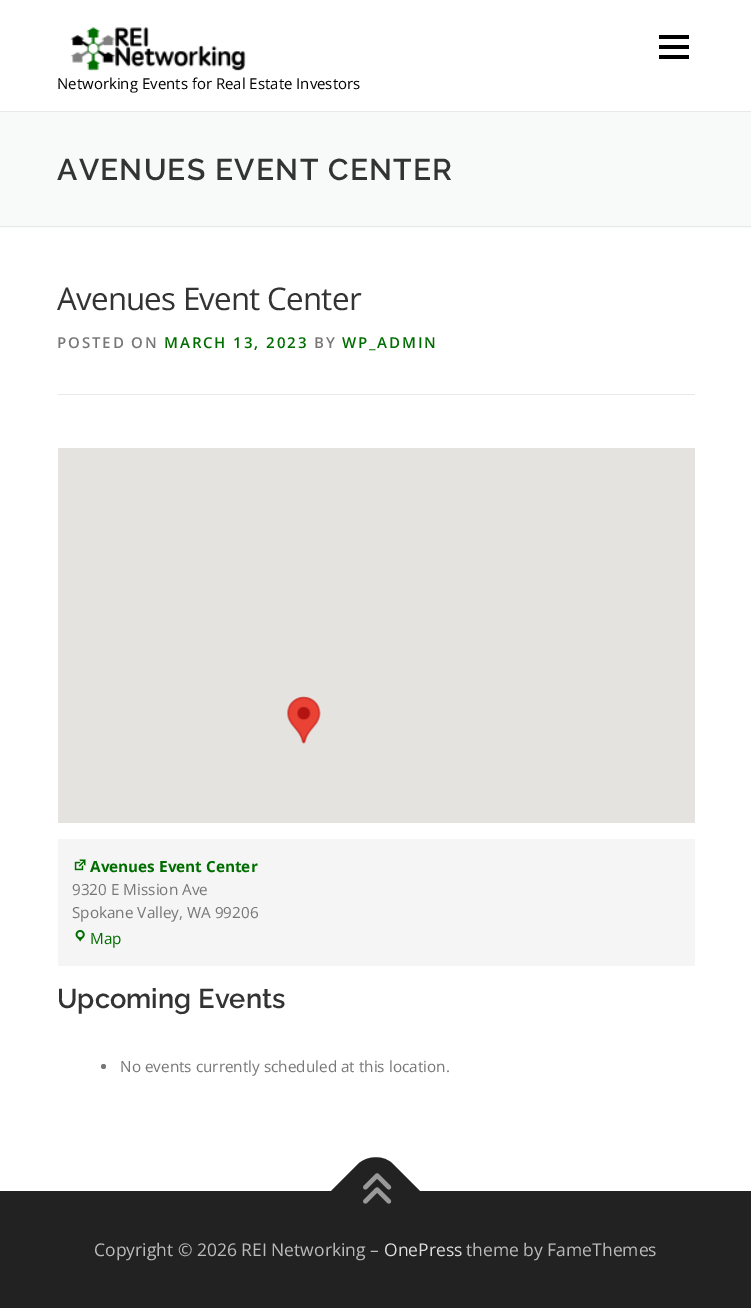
%!PS
<< /PageSize [751 1314] >> setpagedevice
/mt/moveto load def
/li/lineto load def
/ct/curveto load def
/cp/closepath load def
/fl/fill load def
/co { dup -16 bitshift 255 div exch dup -8 bitshift 255 and 255 div exch 255 and 255 div setrgbcolor } def
/fn { [ exch dup neg 0 0 3 -1 roll 0 0 ] selectfont } def
/tx { co fn moveto show } def
/bx { co rectfill } def
/ci { newpath 0 360 arc closepath } def
/im { 5 dict begin { /h /w /y /x /name } { exch def } forall
  gsave x y translate w h scale
  w h 8 [w 0 0 h 0 0] name (r) file false 3 colorimage grestore end } def
0 1314 translate 1 -1 scale
4 setmiterlimit
0 0 751 1314 16#FFFFFF bx
659 45 30 4 16#000000 bx
659 35 30 4 16#000000 bx
659 55 30 4 16#000000 bx
(media/1.raw) 70 27 176 44 im
0 112 751 116 16#F8F9F9 bx
0 111 751 1 16#E9E9E9 bx
0 226 751 1 16#E9E9E9 bx
58 394 637 1 16#E9E9E9 bx
58 448 637 375 16#E5E3DF bx
(media/2.raw) 287 696 34 48 im
58 839 637 127 16#F5F5F5 bx
(media/3.raw) 74 859 12 12 im
(media/4.raw) 75 930 10 12 im
16#777777 co
103.5 1066.5 2.5 ci fl
0 1191 751 117 16#222222 bx
331 1191 mt 358 1164 li 368 1155 384 1155 393 1164 ct 420 1191 li 376 1235 li cp fl
(media/5.raw) 363 1173 29 31 im
(Networking Events for Real Estate Investors) 57 89 /OpenSans-Regular 15 16#000000 tx
/Raleway-SemiBold 30 fn
16#333333 co
57 180 mt 1.25 0 (AVENUES EVENT CENTER) ashow
/OpenSans-Regular 31.25 fn
57 310 mt -.75 0 (Avenues Event Center) ashow
/OpenSans-SemiBold 15 fn
16#777777 co
57 348 mt 1.9 0 (POSTED ON) ashow
16#006D00 co
164 348 mt 1.9 0 (MARCH 13, 2023) ashow
16#777777 co
314 348 mt 1.9 0 (BY) ashow
16#006D00 co
342 348 mt 1.9 0 (WP_ADMIN) ashow
(Avenues Event Center) 90 872 /OpenSans-Bold 15.3 16#006D00 tx
(9320 E Mission Ave) 72 895 /OpenSans-Regular 15.3 16#777777 tx
(Spokane Valley, WA 99206) 72 918 /OpenSans-Regular 15.3 16#777777 tx
(Map) 90 944 /OpenSans-Regular 15.3 16#006D00 tx
(Upcoming Events) 57 1008 /Raleway-SemiBold 27.25 16#333333 tx
(No events currently scheduled at this location.) 120 1072 /OpenSans-Regular 15.3 16#777777 tx
(Copyright © 2026 REI Networking –) 94 1256 /OpenSans-Regular 17.5 16#BBBBBB tx
(OnePress) 384 1256 /OpenSans-Regular 17.5 16#DDDDDD tx
(theme by FameThemes) 466 1256 /OpenSans-Regular 17.5 16#BBBBBB tx
showpage
